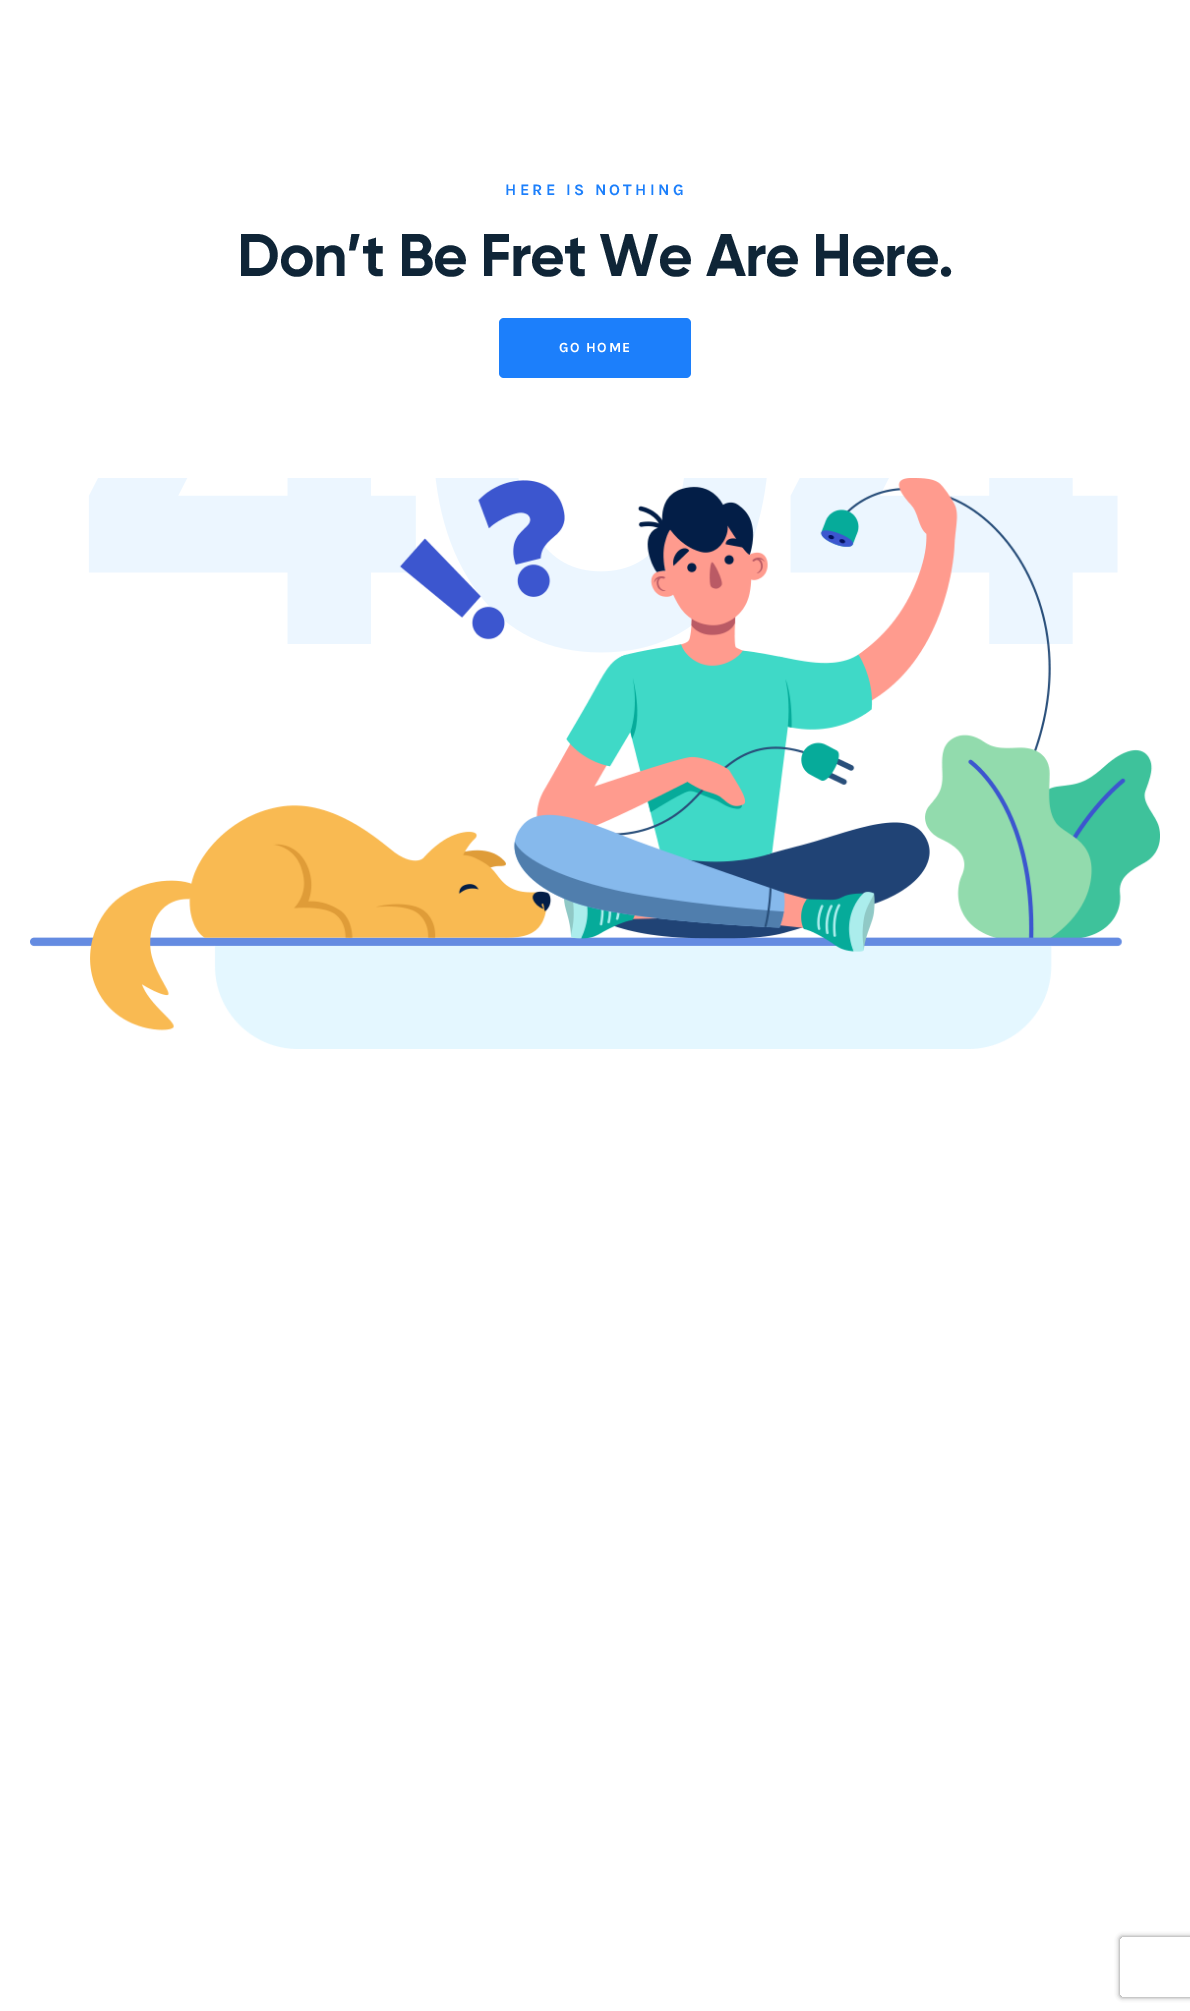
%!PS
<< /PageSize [1190 2011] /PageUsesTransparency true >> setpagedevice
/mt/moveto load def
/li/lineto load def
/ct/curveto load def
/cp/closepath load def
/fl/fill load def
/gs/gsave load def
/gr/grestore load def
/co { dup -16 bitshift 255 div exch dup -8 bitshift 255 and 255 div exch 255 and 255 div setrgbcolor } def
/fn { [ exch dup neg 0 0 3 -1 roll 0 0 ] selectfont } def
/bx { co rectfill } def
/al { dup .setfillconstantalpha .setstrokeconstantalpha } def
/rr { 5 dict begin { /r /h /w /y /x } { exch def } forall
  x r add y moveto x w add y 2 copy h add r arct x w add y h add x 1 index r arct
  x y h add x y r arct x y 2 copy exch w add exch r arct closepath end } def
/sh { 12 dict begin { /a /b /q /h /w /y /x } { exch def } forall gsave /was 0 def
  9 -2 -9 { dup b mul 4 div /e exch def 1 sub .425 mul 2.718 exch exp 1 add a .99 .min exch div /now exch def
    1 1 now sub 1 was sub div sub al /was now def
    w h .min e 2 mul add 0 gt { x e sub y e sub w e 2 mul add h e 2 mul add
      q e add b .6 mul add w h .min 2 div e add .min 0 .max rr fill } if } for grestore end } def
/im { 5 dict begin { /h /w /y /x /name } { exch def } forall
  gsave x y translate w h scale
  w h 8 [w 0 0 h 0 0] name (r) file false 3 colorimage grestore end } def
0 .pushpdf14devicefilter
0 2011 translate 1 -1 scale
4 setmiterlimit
0 0 1190 2011 16#FFFFFF bx
16#1C7FFB co
499 318 192 60 5 rr fl
(media/1.raw) 30 478 1130 571 im
gs
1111 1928 mt 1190 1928 li 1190 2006 li 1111 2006 li cp 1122 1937 mt 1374 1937 li 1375 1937 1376 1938 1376 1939 ct 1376 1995 li 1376 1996 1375 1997 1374 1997 ct 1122 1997 li 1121 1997 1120 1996 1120 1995 ct 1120 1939 li 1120 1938 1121 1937 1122 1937 ct cp eoclip newpath
16#818181 co
1120 1937 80 60 2 2.5 1 sh
gr
/Karla-Bold 16 fn
505 195 mt 3.25 0 (HERE IS NOTHING) ashow
/Gilroy-Bold 60 fn
16#0F2537 co
237 276 mt -1.2 0 (Don’t Be Fret We Are Here.) ashow
/Karla-Bold 14 fn
16#FFFFFF co
559 352 mt 1.5 0 (GO HOME) ashow
.poppdf14devicefilter showpage
